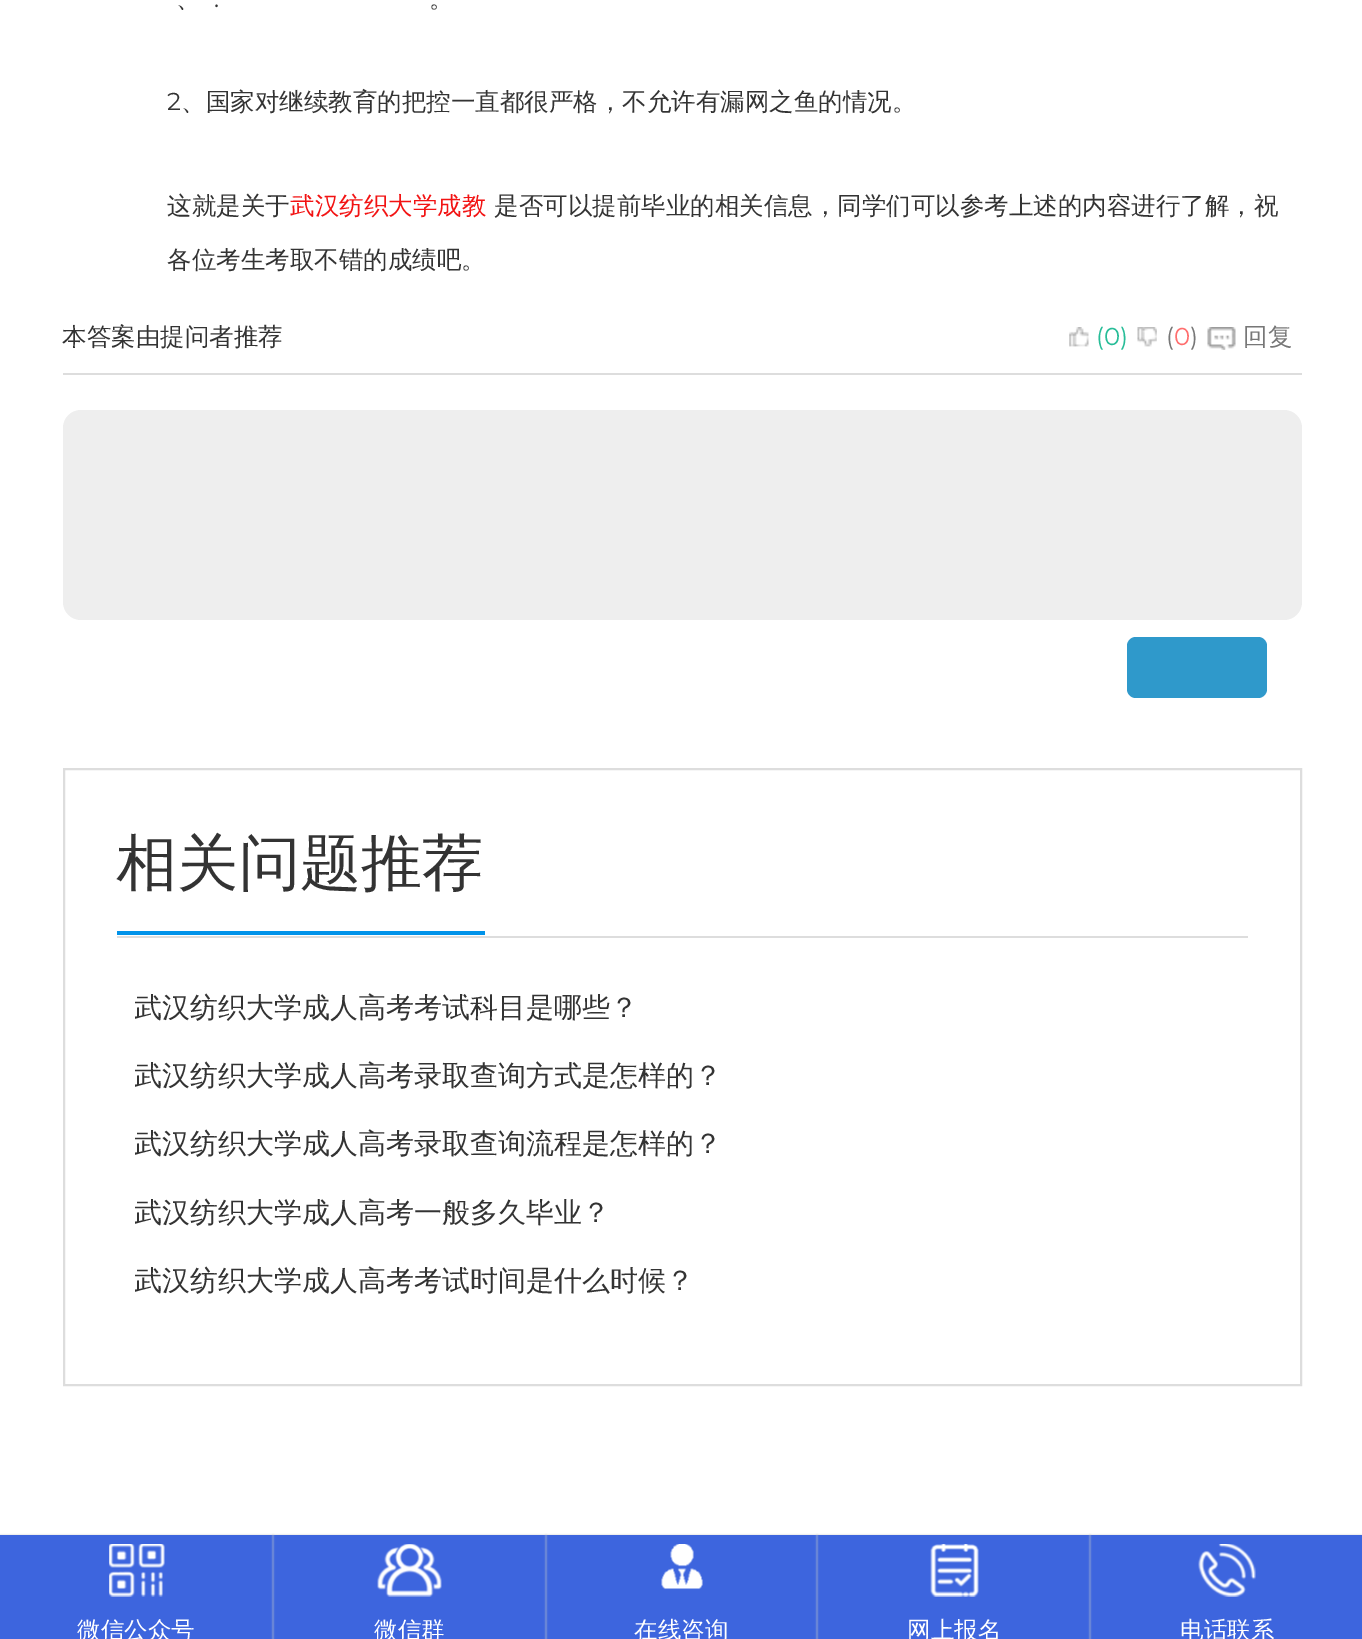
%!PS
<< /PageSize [1362 1639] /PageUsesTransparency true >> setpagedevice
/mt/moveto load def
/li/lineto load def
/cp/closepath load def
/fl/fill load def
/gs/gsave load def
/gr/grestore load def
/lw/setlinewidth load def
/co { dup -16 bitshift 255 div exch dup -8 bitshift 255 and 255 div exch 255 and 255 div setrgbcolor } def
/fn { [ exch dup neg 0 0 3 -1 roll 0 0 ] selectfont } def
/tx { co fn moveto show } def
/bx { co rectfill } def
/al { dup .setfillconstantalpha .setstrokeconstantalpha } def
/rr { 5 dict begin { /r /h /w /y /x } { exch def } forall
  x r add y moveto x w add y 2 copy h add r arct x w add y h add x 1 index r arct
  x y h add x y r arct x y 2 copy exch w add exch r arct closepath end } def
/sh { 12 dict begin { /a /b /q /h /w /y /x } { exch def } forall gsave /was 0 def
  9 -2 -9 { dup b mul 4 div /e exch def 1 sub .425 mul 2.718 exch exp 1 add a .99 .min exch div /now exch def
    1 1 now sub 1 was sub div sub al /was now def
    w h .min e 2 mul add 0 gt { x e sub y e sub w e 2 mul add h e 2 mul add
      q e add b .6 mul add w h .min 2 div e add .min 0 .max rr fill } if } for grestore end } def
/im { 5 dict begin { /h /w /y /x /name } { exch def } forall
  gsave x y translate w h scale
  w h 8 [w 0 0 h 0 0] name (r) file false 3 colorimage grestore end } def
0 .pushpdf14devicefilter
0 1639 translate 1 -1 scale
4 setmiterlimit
0 0 1362 1639 16#FFFFFF bx
63 373 1239 2 16#DDDDDD bx
(media/1.raw) 1069 327 20 20 im
(media/2.raw) 1137 327 20 20 im
(media/3.raw) 1207 327 29 23 im
16#EEEEEE co
63 410 1239 210 18 rr fl
16#2F99CB co
1127 637 140 61 9 rr fl
16#DDDDDD co
2 lw
64 769 1237 616 rectstroke
117 936 1131 2 16#DDDDDD bx
117 931 368 4 16#0093EA bx
0 1535 1362 104 16#3D65DE bx
gs
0 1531 mt 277 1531 li 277 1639 li 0 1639 li cp 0 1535 mt 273 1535 li 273 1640 li 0 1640 li cp eoclip newpath
16#C9C9C9 co
0 1535 273 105 0 1 1 sh
gr
(media/4.raw) 109 1544 56 53 im
gs
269 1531 mt 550 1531 li 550 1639 li 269 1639 li cp 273 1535 mt 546 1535 li 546 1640 li 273 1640 li cp eoclip newpath
16#C9C9C9 co
273 1535 273 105 0 1 1 sh
gr
(media/5.raw) 377 1544 65 53 im
gs
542 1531 mt 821 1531 li 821 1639 li 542 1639 li cp 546 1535 mt 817 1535 li 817 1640 li 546 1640 li cp eoclip newpath
16#C9C9C9 co
546 1535 271 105 0 1 1 sh
gr
(media/6.raw) 661 1544 42 46 im
gs
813 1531 mt 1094 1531 li 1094 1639 li 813 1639 li cp 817 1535 mt 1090 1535 li 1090 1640 li 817 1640 li cp eoclip newpath
16#C9C9C9 co
817 1535 273 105 0 1 1 sh
gr
(media/7.raw) 930 1544 49 53 im
gs
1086 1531 mt 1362 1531 li 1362 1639 li 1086 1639 li cp 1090 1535 mt 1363 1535 li 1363 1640 li 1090 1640 li cp eoclip newpath
16#C9C9C9 co
1090 1535 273 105 0 1 1 sh
gr
(media/8.raw) 1198 1544 58 53 im
(、) 176 7 /WenQuanYiZenHei-Medium 24.5 16#333333 tx
(.) 214 7 /Montserrat-Regular 24.5 16#333333 tx
(。) 429 7 /WenQuanYiZenHei-Medium 24.5 16#333333 tx
(2) 167 110 /Montserrat-Regular 24.5 16#333333 tx
(、国家对继续教育的把控一直都很严格，不允许有漏网之鱼的情况。) 181 110 /WenQuanYiZenHei-Medium 24.5 16#333333 tx
(这就是关于) 167 214 /WenQuanYiZenHei-Medium 24.5 16#333333 tx
(武汉纺织大学成教) 290 214 /WenQuanYiZenHei-Medium 24.5 16#F21313 tx
(是否可以提前毕业的相关信息，同学们可以参考上述的内容进行了解，祝) 494 214 /WenQuanYiZenHei-Medium 24.5 16#333333 tx
(各位考生考取不错的成绩吧。) 167 268 /WenQuanYiZenHei-Medium 24.5 16#333333 tx
(本答案由提问者推荐) 62 345 /WenQuanYiZenHei-Medium 24.5 16#333333 tx
(\(0\)) 1096 345 /Montserrat-Regular 24.5 16#28BD98 tx
(\() 1166 345 /Montserrat-Regular 24.5 16#777777 tx
(0) 1174 345 /Montserrat-Regular 24.5 16#FF6F6F tx
(\)) 1190 345 /Montserrat-Regular 24.5 16#777777 tx
(回复) 1243 345 /WenQuanYiZenHei-Medium 24.5 16#777777 tx
(相关问题推荐) 116 884 /WenQuanYiZenHei-Medium 61.25 16#333333 tx
gs
135 991 1113 36 rectclip
(武汉纺织大学成人高考考试科目是哪些？) 134 1017 /WenQuanYiZenHei-Medium 28 16#333333 tx
gr
gs
135 1059 1113 37 rectclip
(武汉纺织大学成人高考录取查询方式是怎样的？) 134 1085 /WenQuanYiZenHei-Medium 28 16#333333 tx
gr
gs
135 1127 1113 37 rectclip
(武汉纺织大学成人高考录取查询流程是怎样的？) 134 1153 /WenQuanYiZenHei-Medium 28 16#333333 tx
gr
gs
135 1195 1113 37 rectclip
(武汉纺织大学成人高考一般多久毕业？) 134 1222 /WenQuanYiZenHei-Medium 28 16#333333 tx
gr
gs
135 1264 1113 36 rectclip
(武汉纺织大学成人高考考试时间是什么时候？) 134 1290 /WenQuanYiZenHei-Medium 28 16#333333 tx
gr
(微信公众号) 77 1638 /WenQuanYiZenHei-Medium 23.5 16#FFFFFF tx
(微信群) 374 1638 /WenQuanYiZenHei-Medium 23.5 16#FFFFFF tx
(在线咨询) 634 1638 /WenQuanYiZenHei-Medium 23.5 16#FFFFFF tx
(网上报名) 907 1638 /WenQuanYiZenHei-Medium 23.5 16#FFFFFF tx
(电话联系) 1180 1638 /WenQuanYiZenHei-Medium 23.5 16#FFFFFF tx
.poppdf14devicefilter showpage
